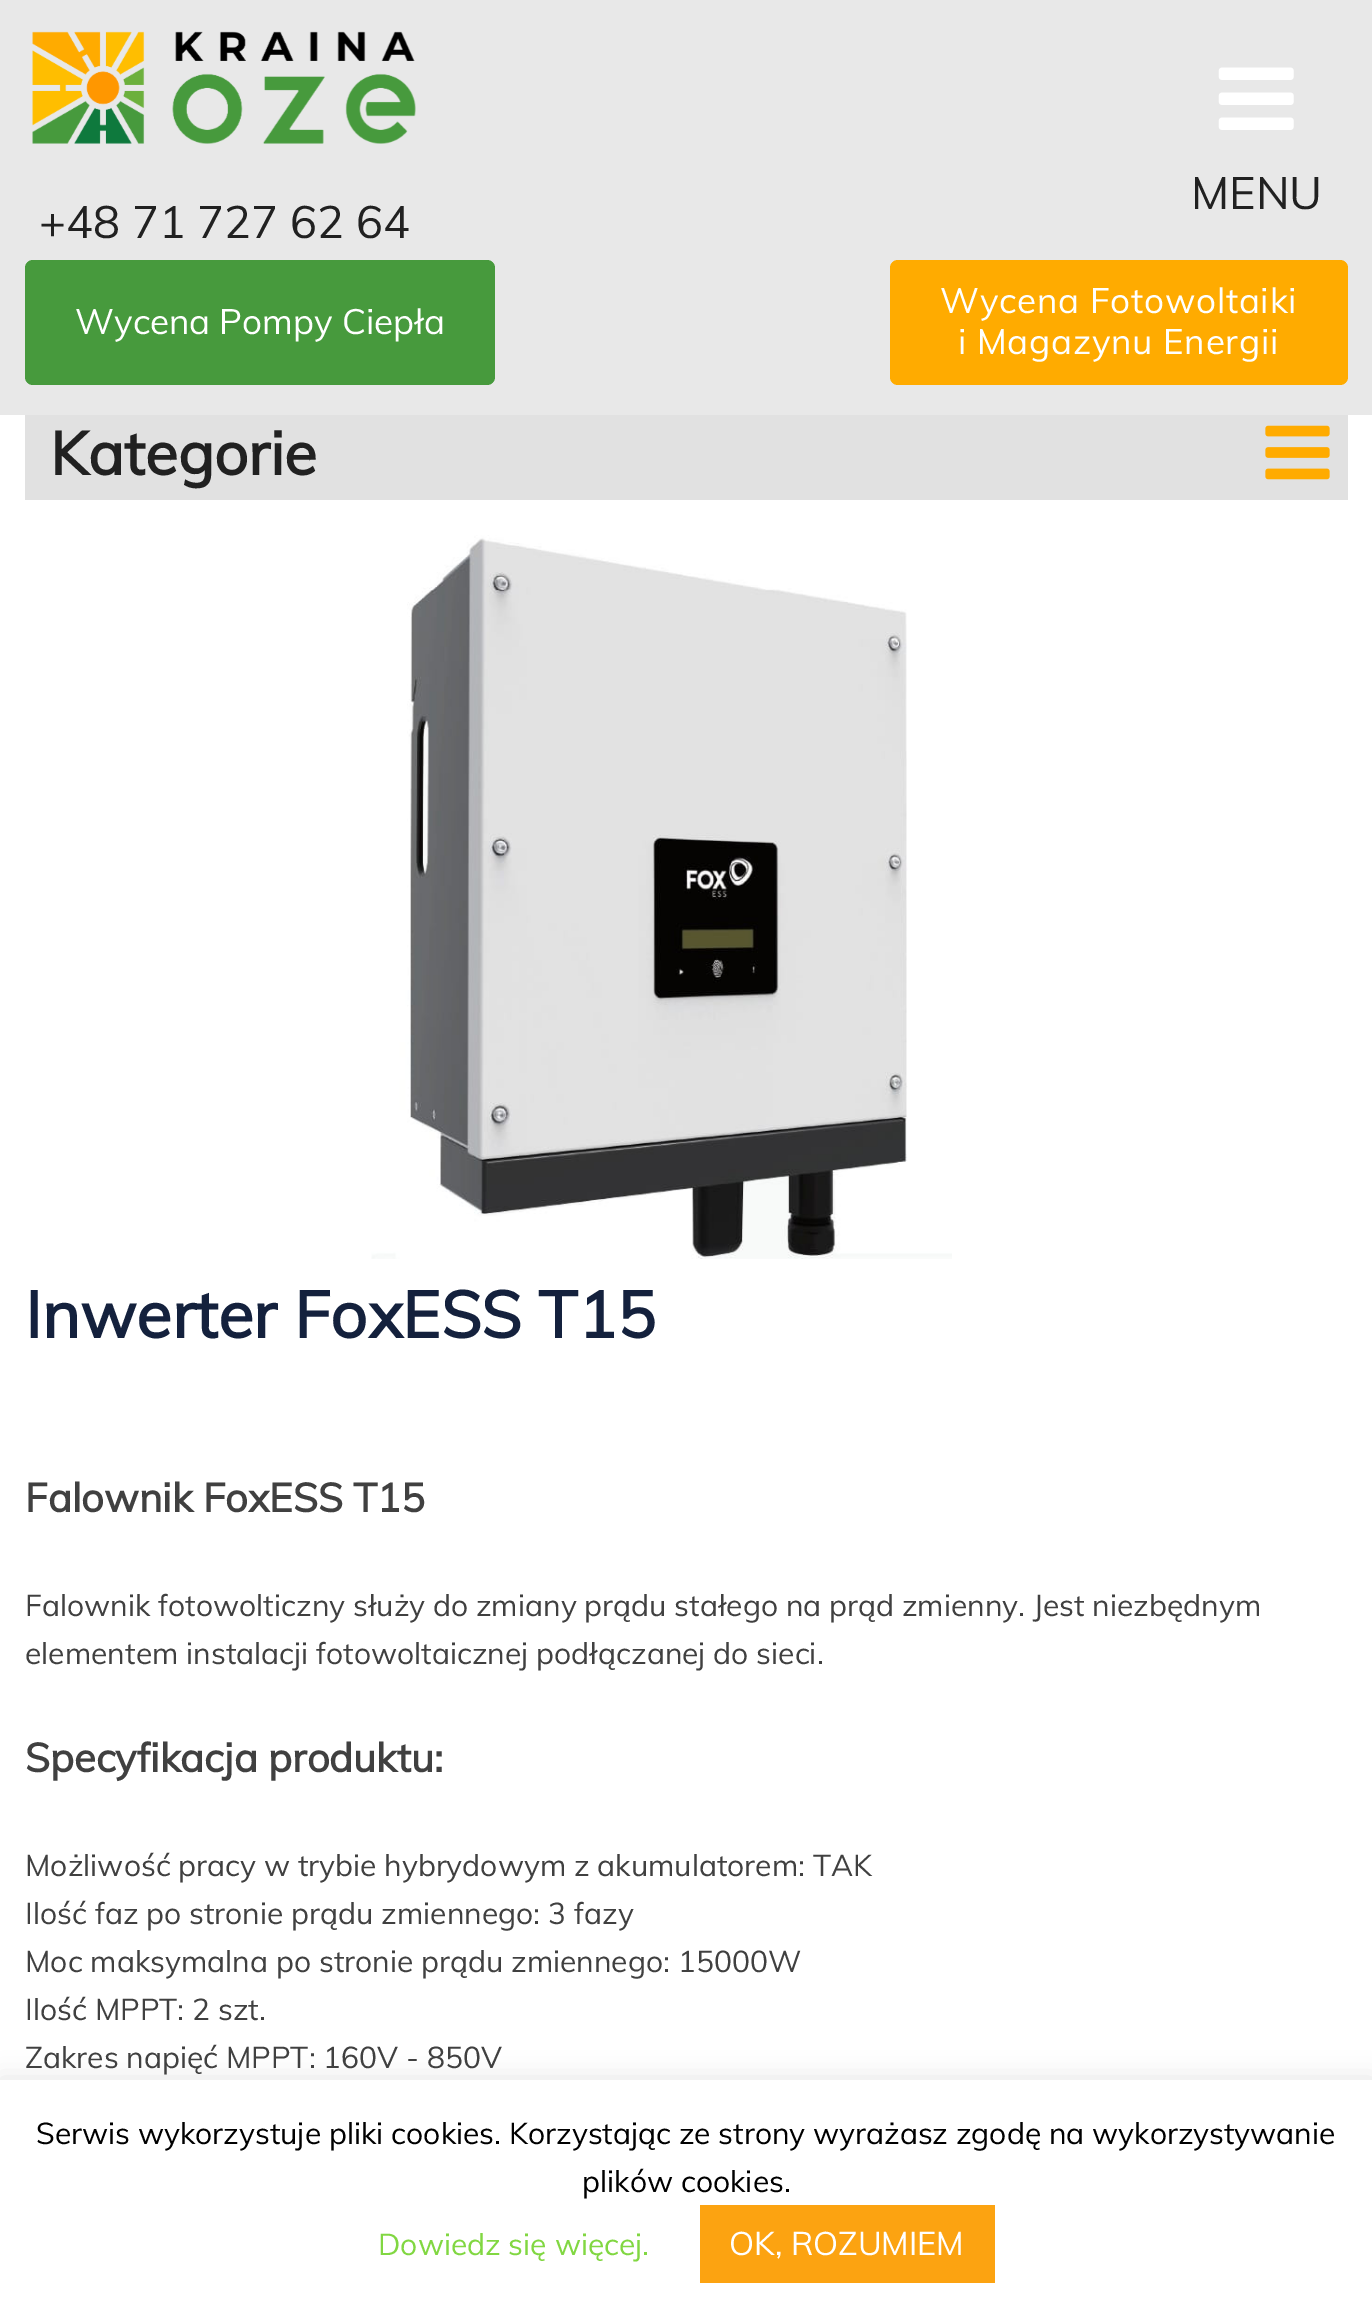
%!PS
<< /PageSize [1372 2311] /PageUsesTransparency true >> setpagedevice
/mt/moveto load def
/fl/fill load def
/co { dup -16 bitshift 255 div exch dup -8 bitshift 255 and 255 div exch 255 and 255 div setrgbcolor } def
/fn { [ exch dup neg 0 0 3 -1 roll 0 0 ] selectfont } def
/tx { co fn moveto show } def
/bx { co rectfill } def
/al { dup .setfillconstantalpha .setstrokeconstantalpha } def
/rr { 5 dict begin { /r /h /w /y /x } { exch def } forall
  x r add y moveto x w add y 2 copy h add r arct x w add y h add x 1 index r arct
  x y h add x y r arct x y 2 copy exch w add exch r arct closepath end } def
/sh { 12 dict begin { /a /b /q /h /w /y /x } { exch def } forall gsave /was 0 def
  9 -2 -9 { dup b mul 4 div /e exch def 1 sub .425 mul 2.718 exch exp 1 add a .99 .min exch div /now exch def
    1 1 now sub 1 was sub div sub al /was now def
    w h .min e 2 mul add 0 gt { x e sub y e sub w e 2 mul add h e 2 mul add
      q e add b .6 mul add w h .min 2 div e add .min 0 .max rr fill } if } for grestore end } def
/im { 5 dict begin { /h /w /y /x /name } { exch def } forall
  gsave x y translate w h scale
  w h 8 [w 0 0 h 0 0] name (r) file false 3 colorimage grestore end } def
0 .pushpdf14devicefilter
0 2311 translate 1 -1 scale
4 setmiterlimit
0 0 1372 2311 16#FFFFFF bx
0 0 1372 415 16#E8E8E8 bx
(media/1.raw) 1218 67 76 63 im
(media/2.raw) 32 31 384 113 im
16#479A3D co
25 260 470 125 8 rr fl
16#FFAB00 co
890 260 458 125 8 rr fl
25 415 1323 85 16#E1E1E1 bx
(media/3.raw) 1265 425 65 55 im
(media/4.raw) 371 535 581 724 im
16#ACABAB co
0 2078 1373 232 0 12.5 .3 sh
0 2080 1372 231 16#FFFFFF bx
700 2205 295 78 16#FCA311 bx
(MENU) 1191 209 /Muli-Regular 45 16#212121 tx
(+48 71 727 62 64) 39 238 /Muli-Regular 45 16#212121 tx
(Wycena Pompy Ciepła) 75 334 /Muli-Regular 35 16#FFFFFF tx
940 313 mt .75 0 (Wycena Fotowoltaiki) ashow
958 354 mt .75 0 (i Magazynu Energii) ashow
(Kategorie) 50 475 /Muli-Bold 60 16#212121 tx
(Inwerter FoxESS T15) 25 1338 /Muli-Bold 65 16#14213D tx
(Falownik FoxESS T15) 25 1512 /Muli-Bold 40 16#404040 tx
(Falownik fotowolticzny służy do zmiany prądu stałego na prąd zmienny. Jest niezbędnym) 25 1616 /Muli-Regular 30 16#404040 tx
(elementem instalacji fotowoltaicznej podłączanej do sieci.) 25 1664 /Muli-Regular 30 16#404040 tx
(Specyfikacja produktu:) 25 1772 /Muli-Bold 40 16#404040 tx
(Możliwość pracy w trybie hybrydowym z akumulatorem: TAK) 25 1876 /Muli-Regular 30 16#404040 tx
(Ilość faz po stronie prądu zmiennego: 3 fazy) 25 1924 /Muli-Regular 30 16#404040 tx
(Moc maksymalna po stronie prądu zmiennego: 15000W) 25 1972 /Muli-Regular 30 16#404040 tx
(Ilość MPPT: 2 szt.) 25 2020 /Muli-Regular 30 16#404040 tx
(Zakres napięć MPPT: 160V - 850V) 25 2068 /Muli-Regular 30 16#404040 tx
(Serwis wykorzystuje pliki cookies. Korzystając ze strony wyrażasz zgodę na wykorzystywanie) 36 2144 /Muli-Regular 30 16#000000 tx
(plików cookies.) 582 2192 /Muli-Regular 30 16#000000 tx
(Dowiedz się więcej.) 378 2255 /Muli-Regular 30 16#81D742 tx
(OK, ROZUMIEM) 729 2255 /Muli-Regular 32.5 16#FFFFFF tx
.poppdf14devicefilter showpage
